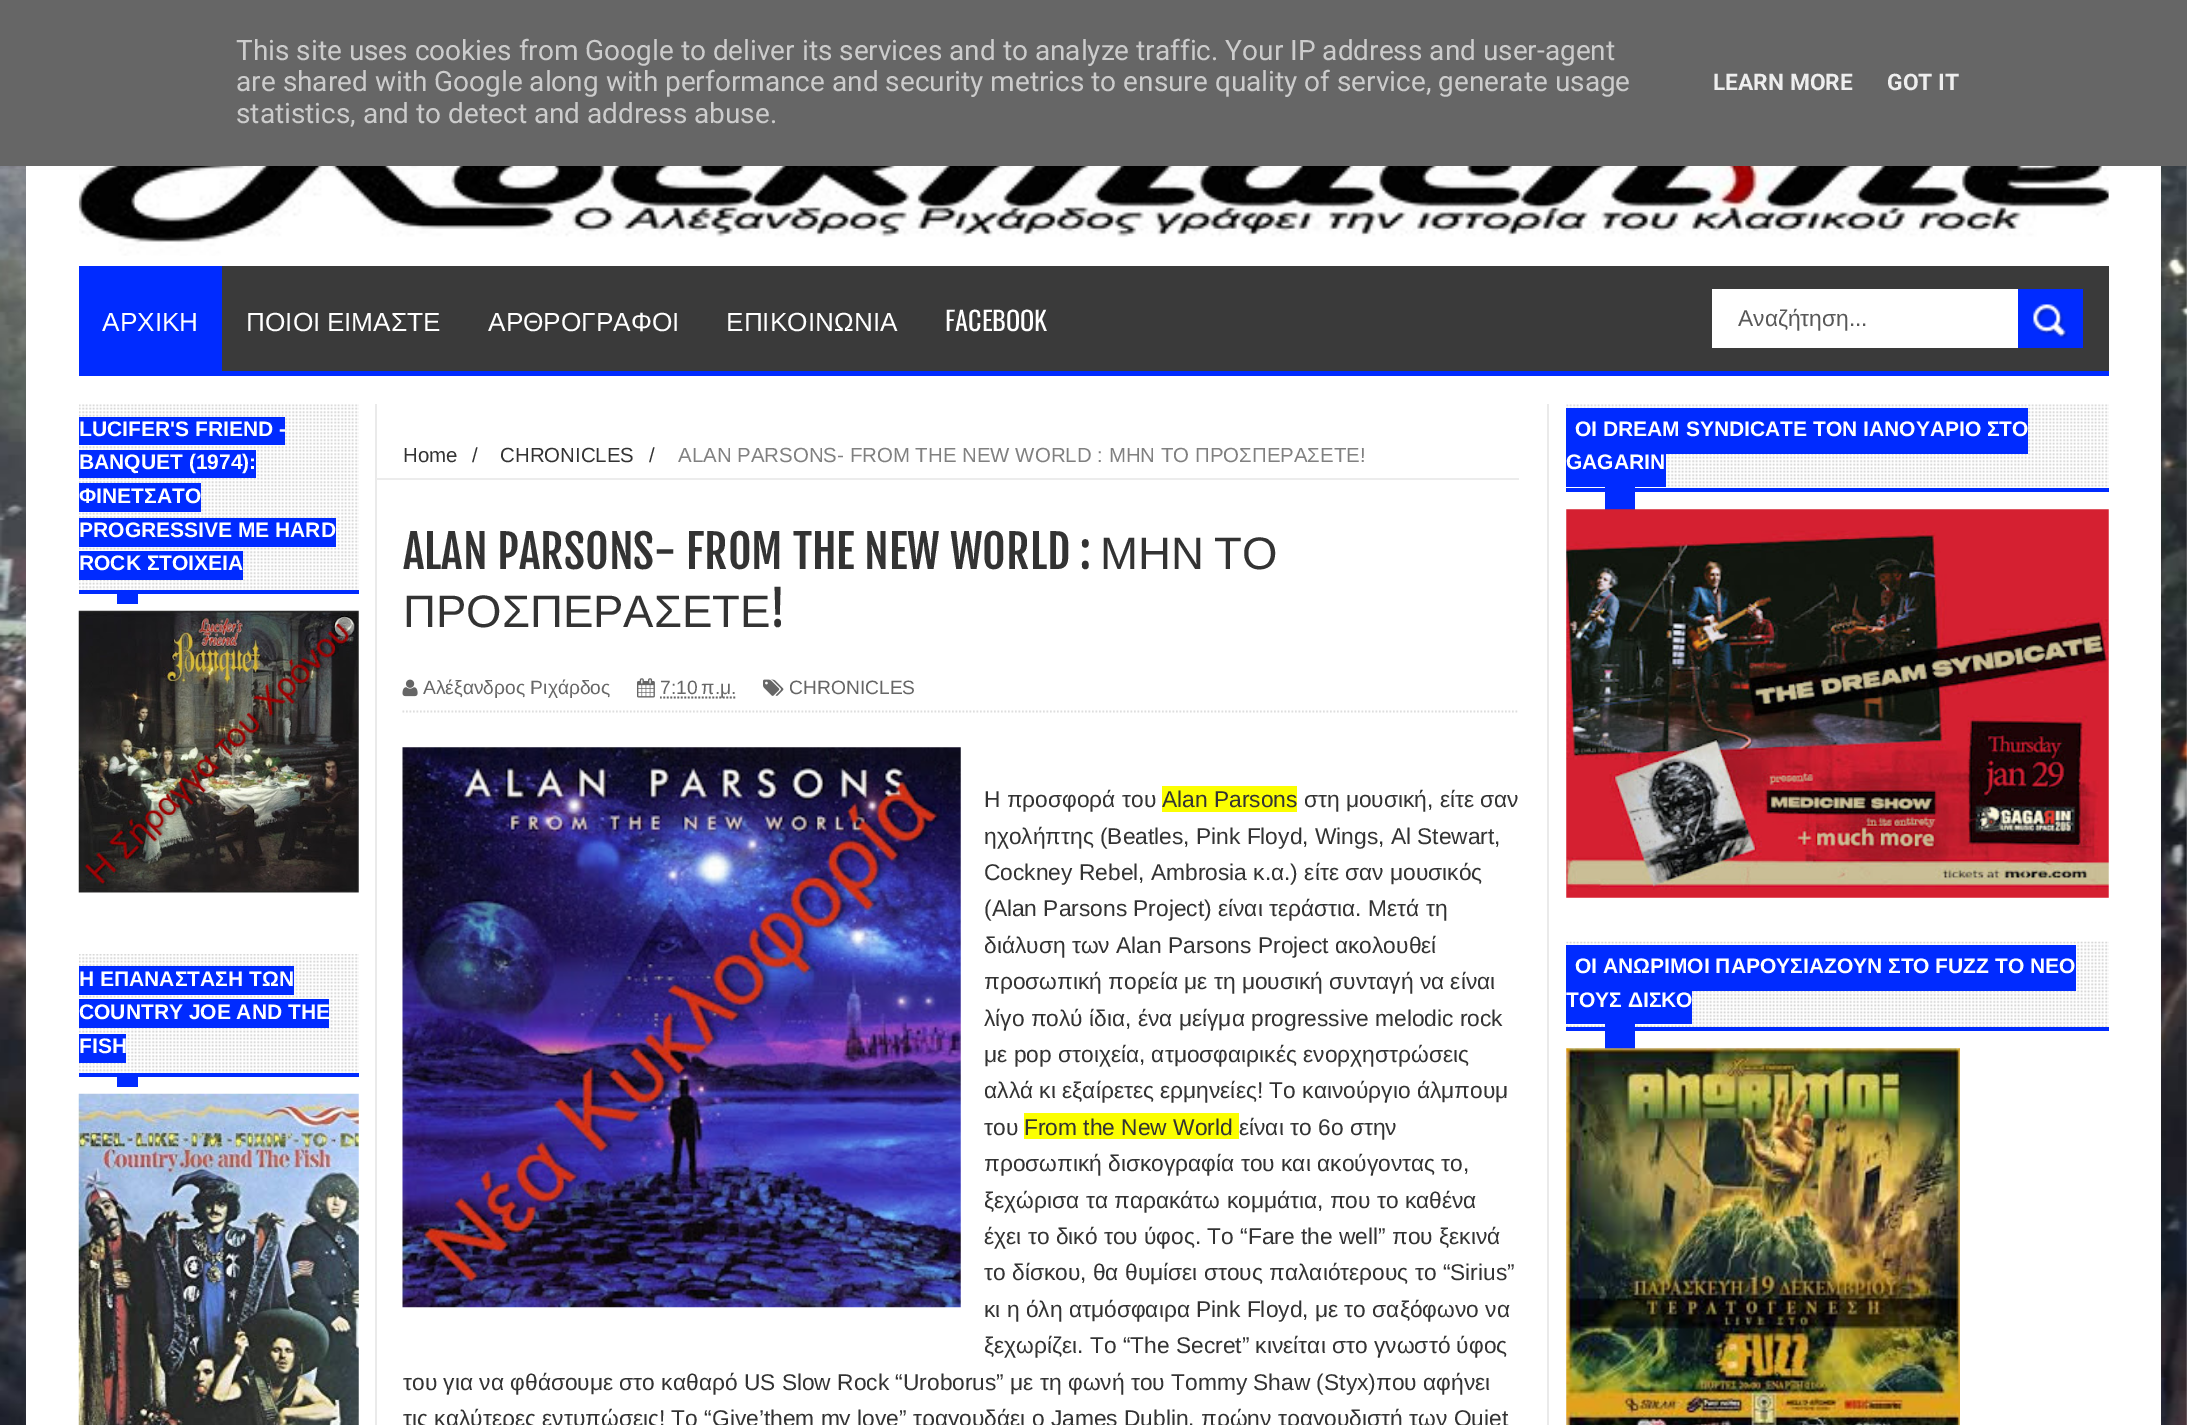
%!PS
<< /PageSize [2187 1425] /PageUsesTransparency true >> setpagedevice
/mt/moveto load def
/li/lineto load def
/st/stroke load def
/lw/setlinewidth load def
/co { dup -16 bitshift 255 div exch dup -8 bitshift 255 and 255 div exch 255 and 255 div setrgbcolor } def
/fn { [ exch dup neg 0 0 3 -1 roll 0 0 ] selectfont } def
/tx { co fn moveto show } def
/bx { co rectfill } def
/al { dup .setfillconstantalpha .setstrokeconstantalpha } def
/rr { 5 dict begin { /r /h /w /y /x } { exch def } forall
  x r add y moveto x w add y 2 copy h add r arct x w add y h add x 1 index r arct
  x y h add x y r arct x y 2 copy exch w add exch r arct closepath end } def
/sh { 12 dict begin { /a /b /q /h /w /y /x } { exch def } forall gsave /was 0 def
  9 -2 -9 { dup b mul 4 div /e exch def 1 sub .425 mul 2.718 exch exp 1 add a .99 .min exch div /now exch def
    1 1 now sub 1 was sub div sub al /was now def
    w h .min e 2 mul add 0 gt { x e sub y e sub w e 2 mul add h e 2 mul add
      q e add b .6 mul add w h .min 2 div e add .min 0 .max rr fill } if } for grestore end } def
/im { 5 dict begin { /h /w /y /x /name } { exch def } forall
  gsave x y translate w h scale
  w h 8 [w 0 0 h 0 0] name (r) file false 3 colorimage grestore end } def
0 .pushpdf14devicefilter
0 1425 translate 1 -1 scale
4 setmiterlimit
0 0 2187 1425 16#FFFFFF bx
(media/1.raw) 0 166 2187 1259 im
16#505050 co
26 0 2135 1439 0 4.5 .1 sh
0 0 2187 166 16#666666 bx
26 166 2135 1259 16#FFFFFF bx
(media/2.raw) 78 166 2031 90 im
222 266 1887 105 16#3A3A3A bx
79 371 2030 5 16#002BFF bx
79 266 143 105 16#002BFF bx
1712 289 306 59 16#FFFFFF bx
2018 289 65 59 16#002BFF bx
(media/3.raw) 2033 304 35 35 im
375 404 2 1021 16#EAEAEA bx
(media/4.raw) 79 404 280 186 im
79 590 280 4 16#002BFF bx
79 417 206 28 16#002BFF bx
79 450 177 28 16#002BFF bx
79 483 122 29 16#002BFF bx
79 518 257 29 16#002BFF bx
79 551 164 29 16#002BFF bx
117 594 21 10 16#002BFF bx
(media/5.raw) 78 610 281 283 im
(media/6.raw) 79 954 280 119 im
79 1073 280 4 16#002BFF bx
79 966 215 29 16#002BFF bx
79 999 250 29 16#002BFF bx
79 1034 47 29 16#002BFF bx
117 1077 21 10 16#002BFF bx
(media/7.raw) 78 1093 281 332 im
376 478 1143 2 16#ECECEC bx
16#DEDEDE co
1.8 lw
[1.75 1.75] 0 setdash
402.5 711.5 mt 1519 711.5 li st
(media/8.raw) 402 679 16 18 im
(media/9.raw) 637 678 18 20 im
16#666666 co
660 697.5 mt 736.5 697.5 li st
(media/10.raw) 763 679 21 17 im
(media/11.raw) 402 747 559 561 im
1162 786 135 26 16#FCFF01 bx
1024 1113 215 26 16#FCFF01 bx
1547 404 2 1021 16#EAEAEA bx
(media/12.raw) 1566 404 543 83 im
1566 488 543 4 16#002BFF bx
1566 408 462 42 16#002BFF bx
1666 450 362 4 16#002BFF bx
1566 450 100 37 16#002BFF bx
1605 487 30 23 16#002BFF bx
(media/13.raw) 1566 509 543 389 im
(media/14.raw) 1566 941 543 86 im
1566 1027 543 4 16#002BFF bx
1566 945 510 46 16#002BFF bx
1566 991 126 33 16#002BFF bx
1605 1024 30 25 16#002BFF bx
(media/15.raw) 1566 1048 394 377 im
(This site uses cookies from Google to deliver its services and to analyze traffic. Your IP address and user-agent) 236 60 /Roboto-Regular 28 16#CCCCCC tx
(are shared with Google along with performance and security metrics to ensure quality of service, generate usage) 236 91 /Roboto-Regular 28 16#CCCCCC tx
(statistics, and to detect and address abuse.) 236 123 /Roboto-Regular 28 16#CCCCCC tx
(LEARN MORE) 1713 90 /Roboto-Bold 22.75 16#EEEEEE tx
(GOT IT) 1887 90 /Roboto-Bold 22.75 16#EEEEEE tx
(ΑΡΧΙΚΗ) 102 331 /LiberationSans-Regular 26.25 16#FFFFFF tx
246 331 mt -1 0 32 (ΠΟΙΟΙ ΕΙΜΑΣΤΕ) widthshow
(ΑΡΘΡΟΓΡΑΦΟΙ) 488 331 /LiberationSans-Regular 26.25 16#FFFFFF tx
(ΕΠΙΚΟΙΝΩΝΙΑ) 726 331 /LiberationSans-Regular 26.25 16#FFFFFF tx
(FACEBOOK) 945 331 /Oswald-Regular 26.25 16#FFFFFF tx
(Αναζήτηση...) 1738 326 /LiberationSans-Regular 22.75 16#585858 tx
(LUCIFER'S FRIEND -) 79 436 /LiberationSans-Bold 21 16#FFFFFF tx
(BANQUET \(1974\):) 79 469 /LiberationSans-Bold 21 16#FFFFFF tx
(ΦΙΝΕΤΣΑΤΟ) 79 503 /LiberationSans-Bold 21 16#FFFFFF tx
(PROGRESSIVE ΜΕ HARD) 79 537 /LiberationSans-Bold 21 16#FFFFFF tx
(ROCK ΣΤΟΙΧΕΙΑ) 79 570 /LiberationSans-Bold 21 16#FFFFFF tx
(Η ΕΠΑΝΑΣΤΑΣΗ ΤΩΝ) 79 986 /LiberationSans-Bold 21 16#FFFFFF tx
(COUNTRY JOE AND THE) 79 1019 /LiberationSans-Bold 21 16#FFFFFF tx
(FISH) 79 1053 /LiberationSans-Bold 21 16#FFFFFF tx
(Home) 403 462 /LiberationSans-Regular 20.45 16#333333 tx
(/) 472 462 /LiberationSans-Regular 20.45 16#333333 tx
(CHRONICLES) 500 462 /LiberationSans-Regular 20.45 16#333333 tx
(/) 649 462 /LiberationSans-Regular 20.45 16#333333 tx
(ALAN PARSONS- FROM THE NEW WORLD : ΜΗΝ ΤΟ ΠΡΟΣΠΕΡΑΣΕΤΕ!) 678 462 /LiberationSans-Regular 20.45 16#808080 tx
(ALAN PARSONS- FROM THE NEW WORLD :) 403 569 /FjallaOne-Regular 45.5 16#333333 tx
(ΜΗΝ) 1100 569 /LiberationSans-Regular 45.5 16#333333 tx
(ΤΟ) 1214 569 /LiberationSans-Regular 45.5 16#333333 tx
(ΠΡΟΣΠΕΡΑΣΕΤΕ) 403 627 /LiberationSans-Regular 45.5 16#333333 tx
(!) 770 627 /FjallaOne-Regular 45.5 16#333333 tx
(Αλέξανδρος Ριχάρδος) 423 694 /LiberationSans-Regular 19.25 16#666666 tx
(7:10 π.μ.) 660 694 /LiberationSans-Regular 19.25 16#666666 tx
(CHRONICLES) 789 694 /LiberationSans-Regular 19.25 16#666666 tx
(Η προσφορά του) 984 807 /LiberationSans-Regular 22.75 16#333333 tx
(Alan Parsons στη μουσική, είτε σαν) 1162 807 /LiberationSans-Regular 22.75 16#333333 tx
(ηχολήπτης \(Beatles, Pink Floyd, Wings, Al Stewart,) 984 844 /LiberationSans-Regular 22.75 16#333333 tx
(Cockney Rebel, Ambrosia κ.α.\) είτε σαν μουσικός) 984 880 /LiberationSans-Regular 22.75 16#333333 tx
(\(Alan Parsons Project\) είναι τεράστια. Μετά τη) 984 916 /LiberationSans-Regular 22.75 16#333333 tx
(διάλυση των Alan Parsons Project ακολουθεί) 984 953 /LiberationSans-Regular 22.75 16#333333 tx
(προσωπική πορεία με τη μουσική συνταγή να είναι) 984 989 /LiberationSans-Regular 22.75 16#333333 tx
(λίγο πολύ ίδια, ένα μείγμα progressive melodic rock) 984 1026 /LiberationSans-Regular 22.75 16#333333 tx
(με pop στοιχεία, ατμοσφαιρικές ενορχηστρώσεις) 984 1062 /LiberationSans-Regular 22.75 16#333333 tx
(αλλά κι εξαίρετες ερμηνείες! Το καινούργιο άλμπουμ) 984 1098 /LiberationSans-Regular 22.75 16#333333 tx
(του) 984 1135 /LiberationSans-Regular 22.75 16#333333 tx
(From the New World είναι το 6ο στην) 1024 1135 /LiberationSans-Regular 22.75 16#333333 tx
(προσωπική δισκογραφία του και ακούγοντας το,) 984 1171 /LiberationSans-Regular 22.75 16#333333 tx
(ξεχώρισα τα παρακάτω κομμάτια, που το καθένα) 984 1208 /LiberationSans-Regular 22.75 16#333333 tx
(έχει το δικό του ύφος. Το “Fare the well” που ξεκινά) 984 1244 /LiberationSans-Regular 22.75 16#333333 tx
(το δίσκου, θα θυμίσει στους παλαιότερους το “Sirius”) 984 1280 /LiberationSans-Regular 22.75 16#333333 tx
(κι η όλη ατμόσφαιρα Pink Floyd, με το σαξόφωνο να) 984 1317 /LiberationSans-Regular 22.75 16#333333 tx
(ξεχωρίζει. Το “The Secret” κινείται στο γνωστό ύφος) 984 1353 /LiberationSans-Regular 22.75 16#333333 tx
(του για να φθάσουμε στο καθαρό US Slow Rock “Uroborus” με τη φωνή του Tommy Shaw \(Styx\)που αφήνει) 403 1390 /LiberationSans-Regular 22.75 16#333333 tx
(τις καλύτερες εντυπώσεις! Το “Give’them my love” τραγουδάει ο James Dublin, πρώην τραγουδιστή των Quiet) 403 1426 /LiberationSans-Regular 22.75 16#333333 tx
(ΟΙ DREAM SYNDICATE ΤΟΝ ΙΑΝΟΥΑΡΙΟ ΣΤΟ) 1575 436 /LiberationSans-Bold 21 16#FFFFFF tx
(GAGARIN) 1566 469 /LiberationSans-Bold 21 16#FFFFFF tx
(ΟΙ ΑΝΩΡΙΜΟΙ ΠΑΡΟΥΣΙΑΖΟΥΝ ΣΤΟ FUZZ ΤΟ ΝΕΟ) 1575 973 /LiberationSans-Bold 21 16#FFFFFF tx
(ΤΟΥΣ ΔΙΣΚΟ) 1566 1007 /LiberationSans-Bold 21 16#FFFFFF tx
.poppdf14devicefilter showpage
